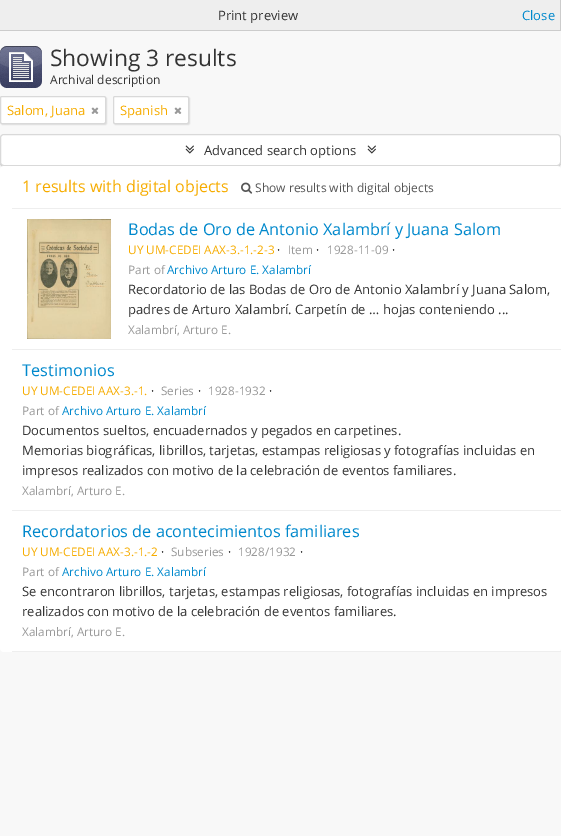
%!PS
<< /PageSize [561 836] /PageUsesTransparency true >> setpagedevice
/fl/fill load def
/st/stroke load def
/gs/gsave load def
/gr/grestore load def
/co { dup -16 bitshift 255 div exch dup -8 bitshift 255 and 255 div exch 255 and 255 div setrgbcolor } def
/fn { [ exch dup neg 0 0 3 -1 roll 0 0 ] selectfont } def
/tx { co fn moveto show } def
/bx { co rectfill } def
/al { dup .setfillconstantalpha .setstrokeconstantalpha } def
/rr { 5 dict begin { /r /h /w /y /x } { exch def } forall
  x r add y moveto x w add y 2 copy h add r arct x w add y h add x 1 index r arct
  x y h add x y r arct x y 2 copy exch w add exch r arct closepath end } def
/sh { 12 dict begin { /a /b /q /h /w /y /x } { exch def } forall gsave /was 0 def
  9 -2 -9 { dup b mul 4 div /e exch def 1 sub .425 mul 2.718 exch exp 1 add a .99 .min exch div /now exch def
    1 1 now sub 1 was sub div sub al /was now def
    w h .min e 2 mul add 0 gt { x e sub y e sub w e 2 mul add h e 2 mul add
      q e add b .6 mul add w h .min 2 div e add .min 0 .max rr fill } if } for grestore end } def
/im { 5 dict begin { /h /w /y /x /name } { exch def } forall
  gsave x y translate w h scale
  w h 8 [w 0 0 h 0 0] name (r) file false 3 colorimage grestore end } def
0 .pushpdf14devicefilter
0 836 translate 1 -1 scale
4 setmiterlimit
0 0 561 836 16#F8F8F8 bx
0 0 560 30 16#EEEEEE bx
560 0 1 31 16#CCCCCC bx
0 30 561 1 16#CCCCCC bx
(media/1.raw) 0 46 42 42 im
16#000000 co
1 97 106 28 2 .5 .1 sh
16#FFFFFF co
.5 96.5 105 27 1.5 rr gs fl gr
16#D9D9D9 co
st
(media/2.raw) 91 107 8 7 im
16#000000 co
114 97 76 28 2 .5 .1 sh
16#FFFFFF co
113.5 96.5 75 27 1.5 rr gs fl gr
16#D9D9D9 co
st
(media/2.raw) 174 107 8 7 im
16#000000 co
0 135 561 32 4 .5 .2 sh
16#FFFFFF co
.5 134.5 560 31 3.5 rr gs fl gr
16#D9D9D9 co
st
(media/3.raw) 185 145 9 9 im
(media/3.raw) 367 145 9 9 im
16#FFFFFF co
0 166 561 486 4 rr fl
12 208 549 1 16#EEEEEE bx
(media/4.raw) 241 182 12 12 im
12 349 549 1 16#EEEEEE bx
(media/5.raw) 27 219 84 120 im
12 510 549 1 16#EEEEEE bx
12 651 549 1 16#EEEEEE bx
(Print preview) 218 20 /OpenSans-Regular 13 16#333333 tx
(Close) 522 20 /OpenSans-Regular 13 16#0088CC tx
(Showing 3 results) 50 66 /OpenSans-Regular 22.75 16#333333 tx
(Archival description) 50 84 /OpenSans-Regular 12 16#333333 tx
(Salom, Juana) 7 115 /OpenSans-Regular 13 16#F6AC00 tx
(Spanish) 120 115 /OpenSans-Regular 13 16#F6AC00 tx
(Advanced search options) 204 155 /OpenSans-Regular 13 16#333333 tx
(1 results with digital objects) 22 192 /OpenSans-Regular 16 16#F6AC00 tx
(Show results with digital objects) 255 192 /OpenSans-Regular 12 16#555555 tx
(Bodas de Oro de Antonio Xalambrí y Juana Salom) 128 235 /OpenSans-Regular 16.25 16#0088CC tx
(UY UM-CEDEI AAX-3.-1.-2-3) 128 254 /OpenSans-Regular 11.75 16#F6AC00 tx
(·) 277 254 /OpenSans-Regular 11.75 16#000000 tx
(Item) 288 254 /OpenSans-Regular 11.75 16#999999 tx
(·) 316 254 /OpenSans-Regular 11.75 16#000000 tx
(1928-11-09) 327 254 /OpenSans-Regular 11.75 16#999999 tx
(·) 392 254 /OpenSans-Regular 11.75 16#000000 tx
(Part of) 128 274 /OpenSans-Regular 11.75 16#999999 tx
(Archivo Arturo E. Xalambrí) 167 274 /OpenSans-Regular 11.75 16#0088CC tx
(Recordatorio de las Bodas de Oro de Antonio Xalambrí y Juana Salom,) 128 294 /OpenSans-Regular 13 16#333333 tx
(padres de Arturo Xalambrí. Carpetín de … hojas conteniendo ...) 128 314 /OpenSans-Regular 13 16#333333 tx
(Xalambrí, Arturo E.) 128 334 /OpenSans-Regular 11.75 16#999999 tx
(Testimonios) 22 376 /OpenSans-Regular 16.25 16#0088CC tx
(UY UM-CEDEI AAX-3.-1.) 22 395 /OpenSans-Regular 11.75 16#F6AC00 tx
(·) 151 395 /OpenSans-Regular 11.75 16#000000 tx
(Series) 161 395 /OpenSans-Regular 11.75 16#999999 tx
(·) 198 395 /OpenSans-Regular 11.75 16#000000 tx
(1928-1932) 208 395 /OpenSans-Regular 11.75 16#999999 tx
(·) 269 395 /OpenSans-Regular 11.75 16#000000 tx
(Part of) 22 415 /OpenSans-Regular 11.75 16#999999 tx
(Archivo Arturo E. Xalambrí) 62 415 /OpenSans-Regular 11.75 16#0088CC tx
(Documentos sueltos, encuadernados y pegados en carpetines.) 22 435 /OpenSans-Regular 13 16#333333 tx
(Memorias biográficas, librillos, tarjetas, estampas religiosas y fotografías incluidas en) 22 455 /OpenSans-Regular 13 16#333333 tx
(impresos realizados con motivo de la celebración de eventos familiares.) 22 475 /OpenSans-Regular 13 16#333333 tx
(Xalambrí, Arturo E.) 22 495 /OpenSans-Regular 11.75 16#999999 tx
(Recordatorios de acontecimientos familiares) 22 537 /OpenSans-Regular 16.25 16#0088CC tx
(UY UM-CEDEI AAX-3.-1.-2) 22 556 /OpenSans-Regular 11.75 16#F6AC00 tx
(·) 161 556 /OpenSans-Regular 11.75 16#000000 tx
(Subseries) 171 556 /OpenSans-Regular 11.75 16#999999 tx
(·) 228 556 /OpenSans-Regular 11.75 16#000000 tx
(1928/1932) 238 556 /OpenSans-Regular 11.75 16#999999 tx
(·) 300 556 /OpenSans-Regular 11.75 16#000000 tx
(Part of) 22 576 /OpenSans-Regular 11.75 16#999999 tx
(Archivo Arturo E. Xalambrí) 62 576 /OpenSans-Regular 11.75 16#0088CC tx
(Se encontraron librillos, tarjetas, estampas religiosas, fotografías incluidas en impresos) 22 596 /OpenSans-Regular 13 16#333333 tx
(realizados con motivo de la celebración de eventos familiares.) 22 616 /OpenSans-Regular 13 16#333333 tx
(Xalambrí, Arturo E.) 22 636 /OpenSans-Regular 11.75 16#999999 tx
.poppdf14devicefilter showpage
